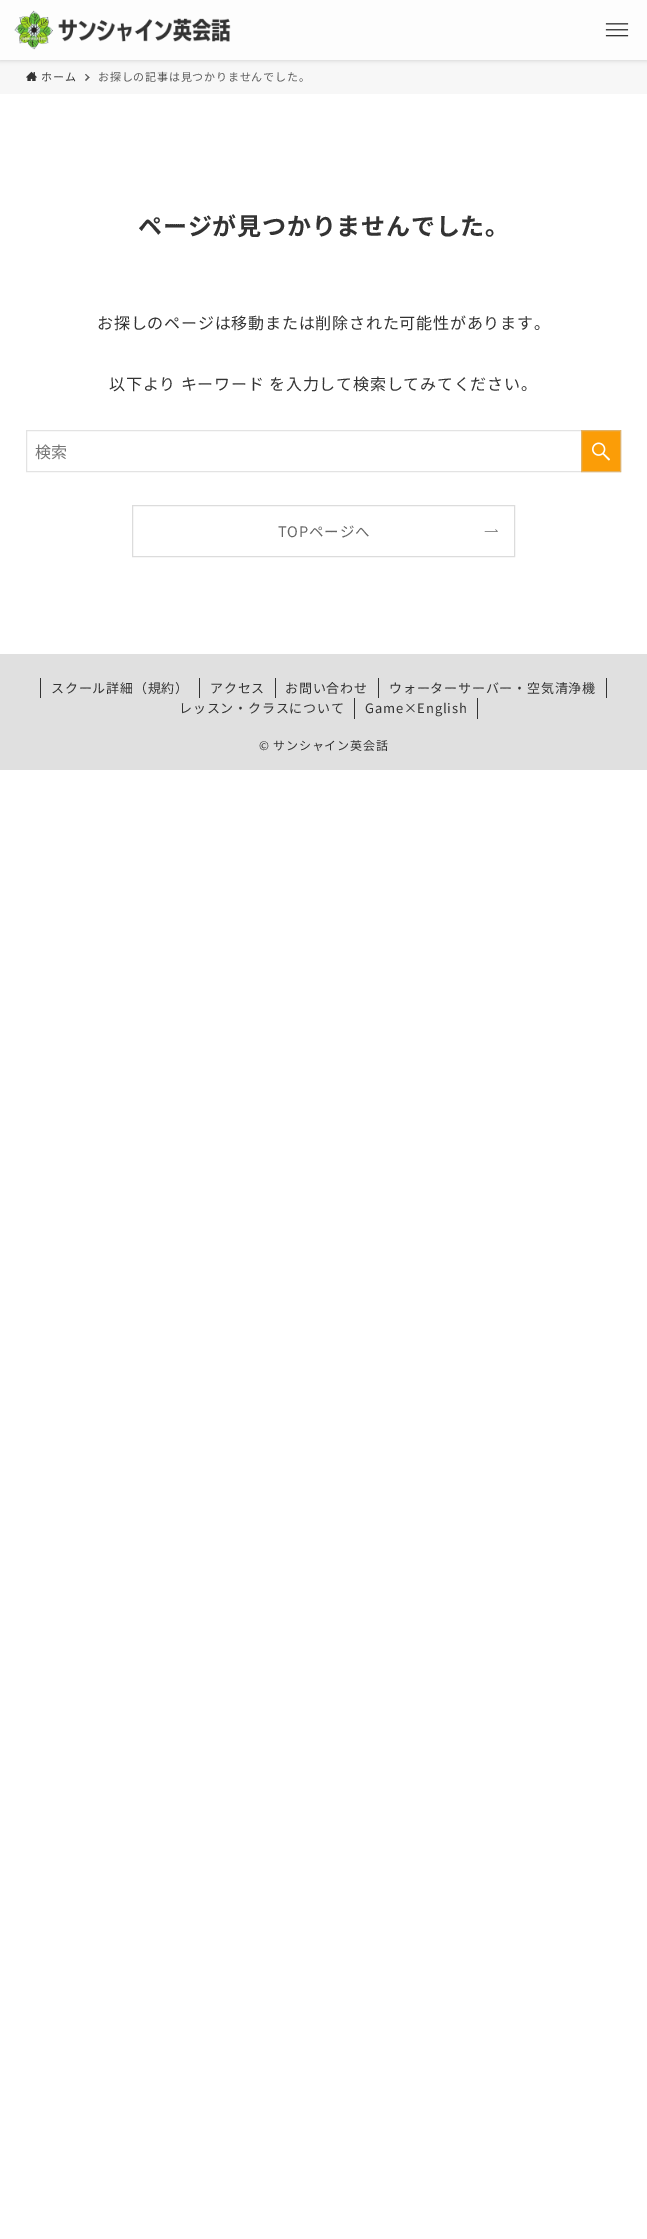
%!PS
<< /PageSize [647 2239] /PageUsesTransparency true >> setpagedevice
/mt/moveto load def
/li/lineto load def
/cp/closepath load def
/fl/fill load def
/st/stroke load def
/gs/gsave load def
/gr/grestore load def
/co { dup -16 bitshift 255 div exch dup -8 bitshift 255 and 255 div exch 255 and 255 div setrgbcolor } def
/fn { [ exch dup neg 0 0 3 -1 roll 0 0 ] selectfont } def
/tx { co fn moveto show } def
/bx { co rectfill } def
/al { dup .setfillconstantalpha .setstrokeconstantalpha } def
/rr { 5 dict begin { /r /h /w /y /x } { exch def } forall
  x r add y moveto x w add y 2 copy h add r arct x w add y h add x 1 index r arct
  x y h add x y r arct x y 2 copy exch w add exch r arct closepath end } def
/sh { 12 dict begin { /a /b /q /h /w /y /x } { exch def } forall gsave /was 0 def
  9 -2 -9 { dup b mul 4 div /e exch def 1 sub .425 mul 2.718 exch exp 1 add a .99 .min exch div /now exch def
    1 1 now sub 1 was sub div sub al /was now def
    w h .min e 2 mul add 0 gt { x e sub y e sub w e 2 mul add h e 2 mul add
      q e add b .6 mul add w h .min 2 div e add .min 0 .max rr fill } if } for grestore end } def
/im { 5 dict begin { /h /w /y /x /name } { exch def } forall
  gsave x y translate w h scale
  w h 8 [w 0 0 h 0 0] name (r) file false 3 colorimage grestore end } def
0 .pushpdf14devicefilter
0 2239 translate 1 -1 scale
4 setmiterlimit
0 0 647 2239 16#FFFFFF bx
0 60 647 34 16#F7F7F7 bx
16#000000 co
0 1 647 60 0 2 .12 sh
0 0 647 60 16#FDFDFD bx
(media/1.raw) 14 10 217 40 im
(media/2.raw) 605 23 24 14 im
(media/3.raw) 26 71 11 10 im
16#5A5A5A co
86 74 mt 89.5 77.5 li 88.5 78 li 85 74.5 li cp fl
88.5 76.5 mt 89.5 77.5 li 86 81 li 85 80 li cp fl
16#E3E3E3 co
26.5 430.5 594 41 rectstroke
16#FB9D07 co
581.5 430.5 mt 620.5 430.5 li 620.5 471.5 li 581.5 471.5 li cp gs fl gr
16#E1B267 co
st
(media/4.raw) 592 442 18 19 im
16#DCDCDC co
132.5 505.5 382 51 rectstroke
(media/5.raw) 484 529 14 3 im
0 654 647 116 16#E0E0E0 bx
199 678 1 20 16#333333 bx
40 678 1 20 16#333333 bx
275 678 1 20 16#333333 bx
378 678 1 20 16#333333 bx
606 678 1 20 16#333333 bx
354 698 1 21 16#333333 bx
477 698 1 21 16#333333 bx
/NotoSansJP-Regular 11 fn
41 81 mt .8 0 (ホーム) ashow
16#5A5A5A co
98 81 mt .8 0 (お探しの記事は見つかりませんでした。) ashow
/NotoSansJP-Bold 24 fn
16#333333 co
138 235 mt .8 0 (ページが見つかりませんでした。) ashow
/NotoSansJP-Regular 16 fn
97 329 mt .8 0 (お探しのページは移動または削除された可能性があります。) ashow
109 390 mt .8 0 (以下より キーワード を入力して検索してみてください。) ashow
(検索) 35 458 /NotoSansJP-Regular 16 16#757575 tx
/NotoSansJP-Regular 14.5 fn
16#666666 co
278 537 mt .8 0 (TOPページへ) ashow
/NotoSansJP-Regular 13 fn
16#333333 co
51 693 mt .8 0 (スクール詳細（規約）) ashow
210 693 mt .8 0 (アクセス) ashow
285 693 mt .8 0 (お問い合わせ) ashow
389 693 mt .8 0 (ウォーターサーバー・空気清浄機) ashow
179 713 mt .8 0 (レッスン・クラスについて) ashow
365 713 mt .8 0 (Game×English) ashow
/NotoSansJP-Regular 12 fn
259 750 mt .8 0 (© サンシャイン英会話) ashow
.poppdf14devicefilter showpage
